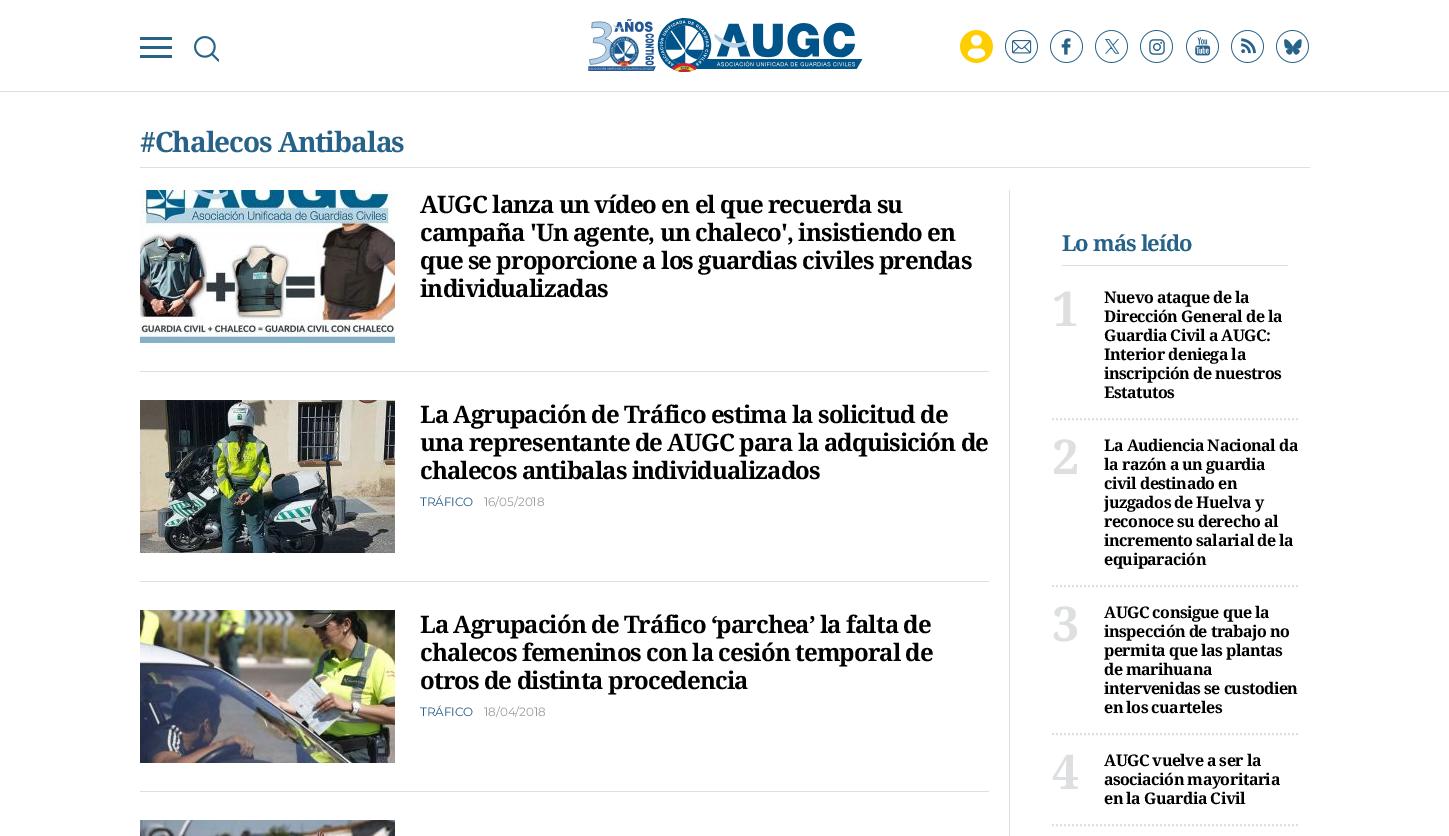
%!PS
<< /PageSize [1449 836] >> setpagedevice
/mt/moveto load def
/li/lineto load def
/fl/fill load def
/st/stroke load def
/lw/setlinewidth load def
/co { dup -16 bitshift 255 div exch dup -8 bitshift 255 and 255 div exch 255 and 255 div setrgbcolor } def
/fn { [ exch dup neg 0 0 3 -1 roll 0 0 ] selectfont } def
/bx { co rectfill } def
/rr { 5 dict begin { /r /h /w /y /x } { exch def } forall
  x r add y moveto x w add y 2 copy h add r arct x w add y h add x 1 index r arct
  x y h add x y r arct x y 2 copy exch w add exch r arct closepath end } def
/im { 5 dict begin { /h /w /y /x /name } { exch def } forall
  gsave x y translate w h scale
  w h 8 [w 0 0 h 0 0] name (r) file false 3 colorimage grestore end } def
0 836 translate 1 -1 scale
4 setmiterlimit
0 0 1449 836 16#FFFFFF bx
0 91 1449 1 16#DDDFE0 bx
16#276289 co
140 46 32 3 1 rr fl
140 37 32 3 1 rr fl
140 55 32 3 1 rr fl
(media/1.raw) 194 36 25 26 im
(media/2.raw) 588 18 275 54 im
(media/3.raw) 960 30 33 33 im
(media/4.raw) 1005 30 33 33 im
(media/5.raw) 1050 30 33 33 im
(media/6.raw) 1095 30 33 33 im
(media/7.raw) 1140 30 33 33 im
(media/8.raw) 1186 30 33 33 im
(media/9.raw) 1231 30 33 33 im
(media/10.raw) 1276 30 33 33 im
140 167 1170 1 16#DDDFE0 bx
1009 190 1 646 16#DDDFE0 bx
(media/11.raw) 140 190 255 153 im
140 371 849 1 16#DDDFE0 bx
(media/12.raw) 140 400 255 153 im
140 581 849 1 16#DDDFE0 bx
(media/13.raw) 140 610 255 153 im
140 791 849 1 16#DDDFE0 bx
(media/14.raw) 140 820 255 16 im
1062 265 226 1 16#DDDFE0 bx
2 lw
[2 2] 0 setdash
1052 419 mt 1298 419 li st
1052 586 mt 1298 586 li st
1052 734 mt 1298 734 li st
1052 825 mt 1298 825 li st
/NotoSerif-Bold 28 fn
16#276289 co
140 152 mt -1.1 0 (#Chalecos Antibalas) ashow
/NotoSerif-Bold 24 fn
16#000000 co
420 213 mt -.95 0 (AUGC lanza un vídeo en el que recuerda su) ashow
420 241 mt -.95 0 (campaña 'Un agente, un chaleco', insistiendo en) ashow
420 269 mt -.95 0 (que se proporcione a los guardias civiles prendas) ashow
420 297 mt -.95 0 (individualizadas) ashow
420 423 mt -.95 0 (La Agrupación de Tráfico estima la solicitud de) ashow
420 451 mt -.95 0 (una representante de AUGC para la adquisición de) ashow
420 479 mt -.95 0 (chalecos antibalas individualizados) ashow
/Montserrat-Regular 12 fn
16#276289 co
420 506 mt -.1 0 (TRÁFICO) ashow
16#979CA0 co
484 506 mt -.1 0 (16/05/2018) ashow
/NotoSerif-Bold 24 fn
16#000000 co
420 633 mt -.95 0 (La Agrupación de Tráfico ‘parchea’ la falta de) ashow
420 661 mt -.95 0 (chalecos femeninos con la cesión temporal de) ashow
420 689 mt -.95 0 (otros de distinta procedencia) ashow
/Montserrat-Regular 12 fn
16#276289 co
420 716 mt -.1 0 (TRÁFICO) ashow
16#979CA0 co
484 716 mt -.1 0 (18/04/2018) ashow
/NotoSerif-Bold 22 fn
16#276289 co
1062 251 mt -.9 0 (Lo más leído) ashow
/NotoSerif-Bold 48 fn
16#DDDFE0 co
1052 326 mt -.55 0 (1) ashow
/NotoSerif-Bold 16 fn
16#000000 co
1104 303 mt -.55 0 (Nuevo ataque de la) ashow
1104 322 mt -.55 0 (Dirección General de la) ashow
1104 341 mt -.55 0 (Guardia Civil a AUGC:) ashow
1104 360 mt -.55 0 (Interior deniega la) ashow
1104 379 mt -.55 0 (inscripción de nuestros) ashow
1104 398 mt -.55 0 (Estatutos) ashow
/NotoSerif-Bold 48 fn
16#DDDFE0 co
1052 474 mt -.55 0 (2) ashow
/NotoSerif-Bold 16 fn
16#000000 co
1104 451 mt -.55 0 (La Audiencia Nacional da) ashow
1104 470 mt -.55 0 (la razón a un guardia) ashow
1104 489 mt -.55 0 (civil destinado en) ashow
1104 508 mt -.55 0 (juzgados de Huelva y) ashow
1104 527 mt -.55 0 (reconoce su derecho al) ashow
1104 546 mt -.55 0 (incremento salarial de la) ashow
1104 565 mt -.55 0 (equiparación) ashow
/NotoSerif-Bold 48 fn
16#DDDFE0 co
1052 641 mt -.55 0 (3) ashow
/NotoSerif-Bold 16 fn
16#000000 co
1104 618 mt -.55 0 (AUGC consigue que la) ashow
1104 637 mt -.55 0 (inspección de trabajo no) ashow
1104 656 mt -.55 0 (permita que las plantas) ashow
1104 675 mt -.55 0 (de marihuana) ashow
1104 694 mt -.55 0 (intervenidas se custodien) ashow
1104 713 mt -.55 0 (en los cuarteles) ashow
/NotoSerif-Bold 48 fn
16#DDDFE0 co
1052 789 mt -.55 0 (4) ashow
/NotoSerif-Bold 16 fn
16#000000 co
1104 766 mt -.55 0 (AUGC vuelve a ser la) ashow
1104 785 mt -.55 0 (asociación mayoritaria) ashow
1104 804 mt -.55 0 (en la Guardia Civil) ashow
showpage
